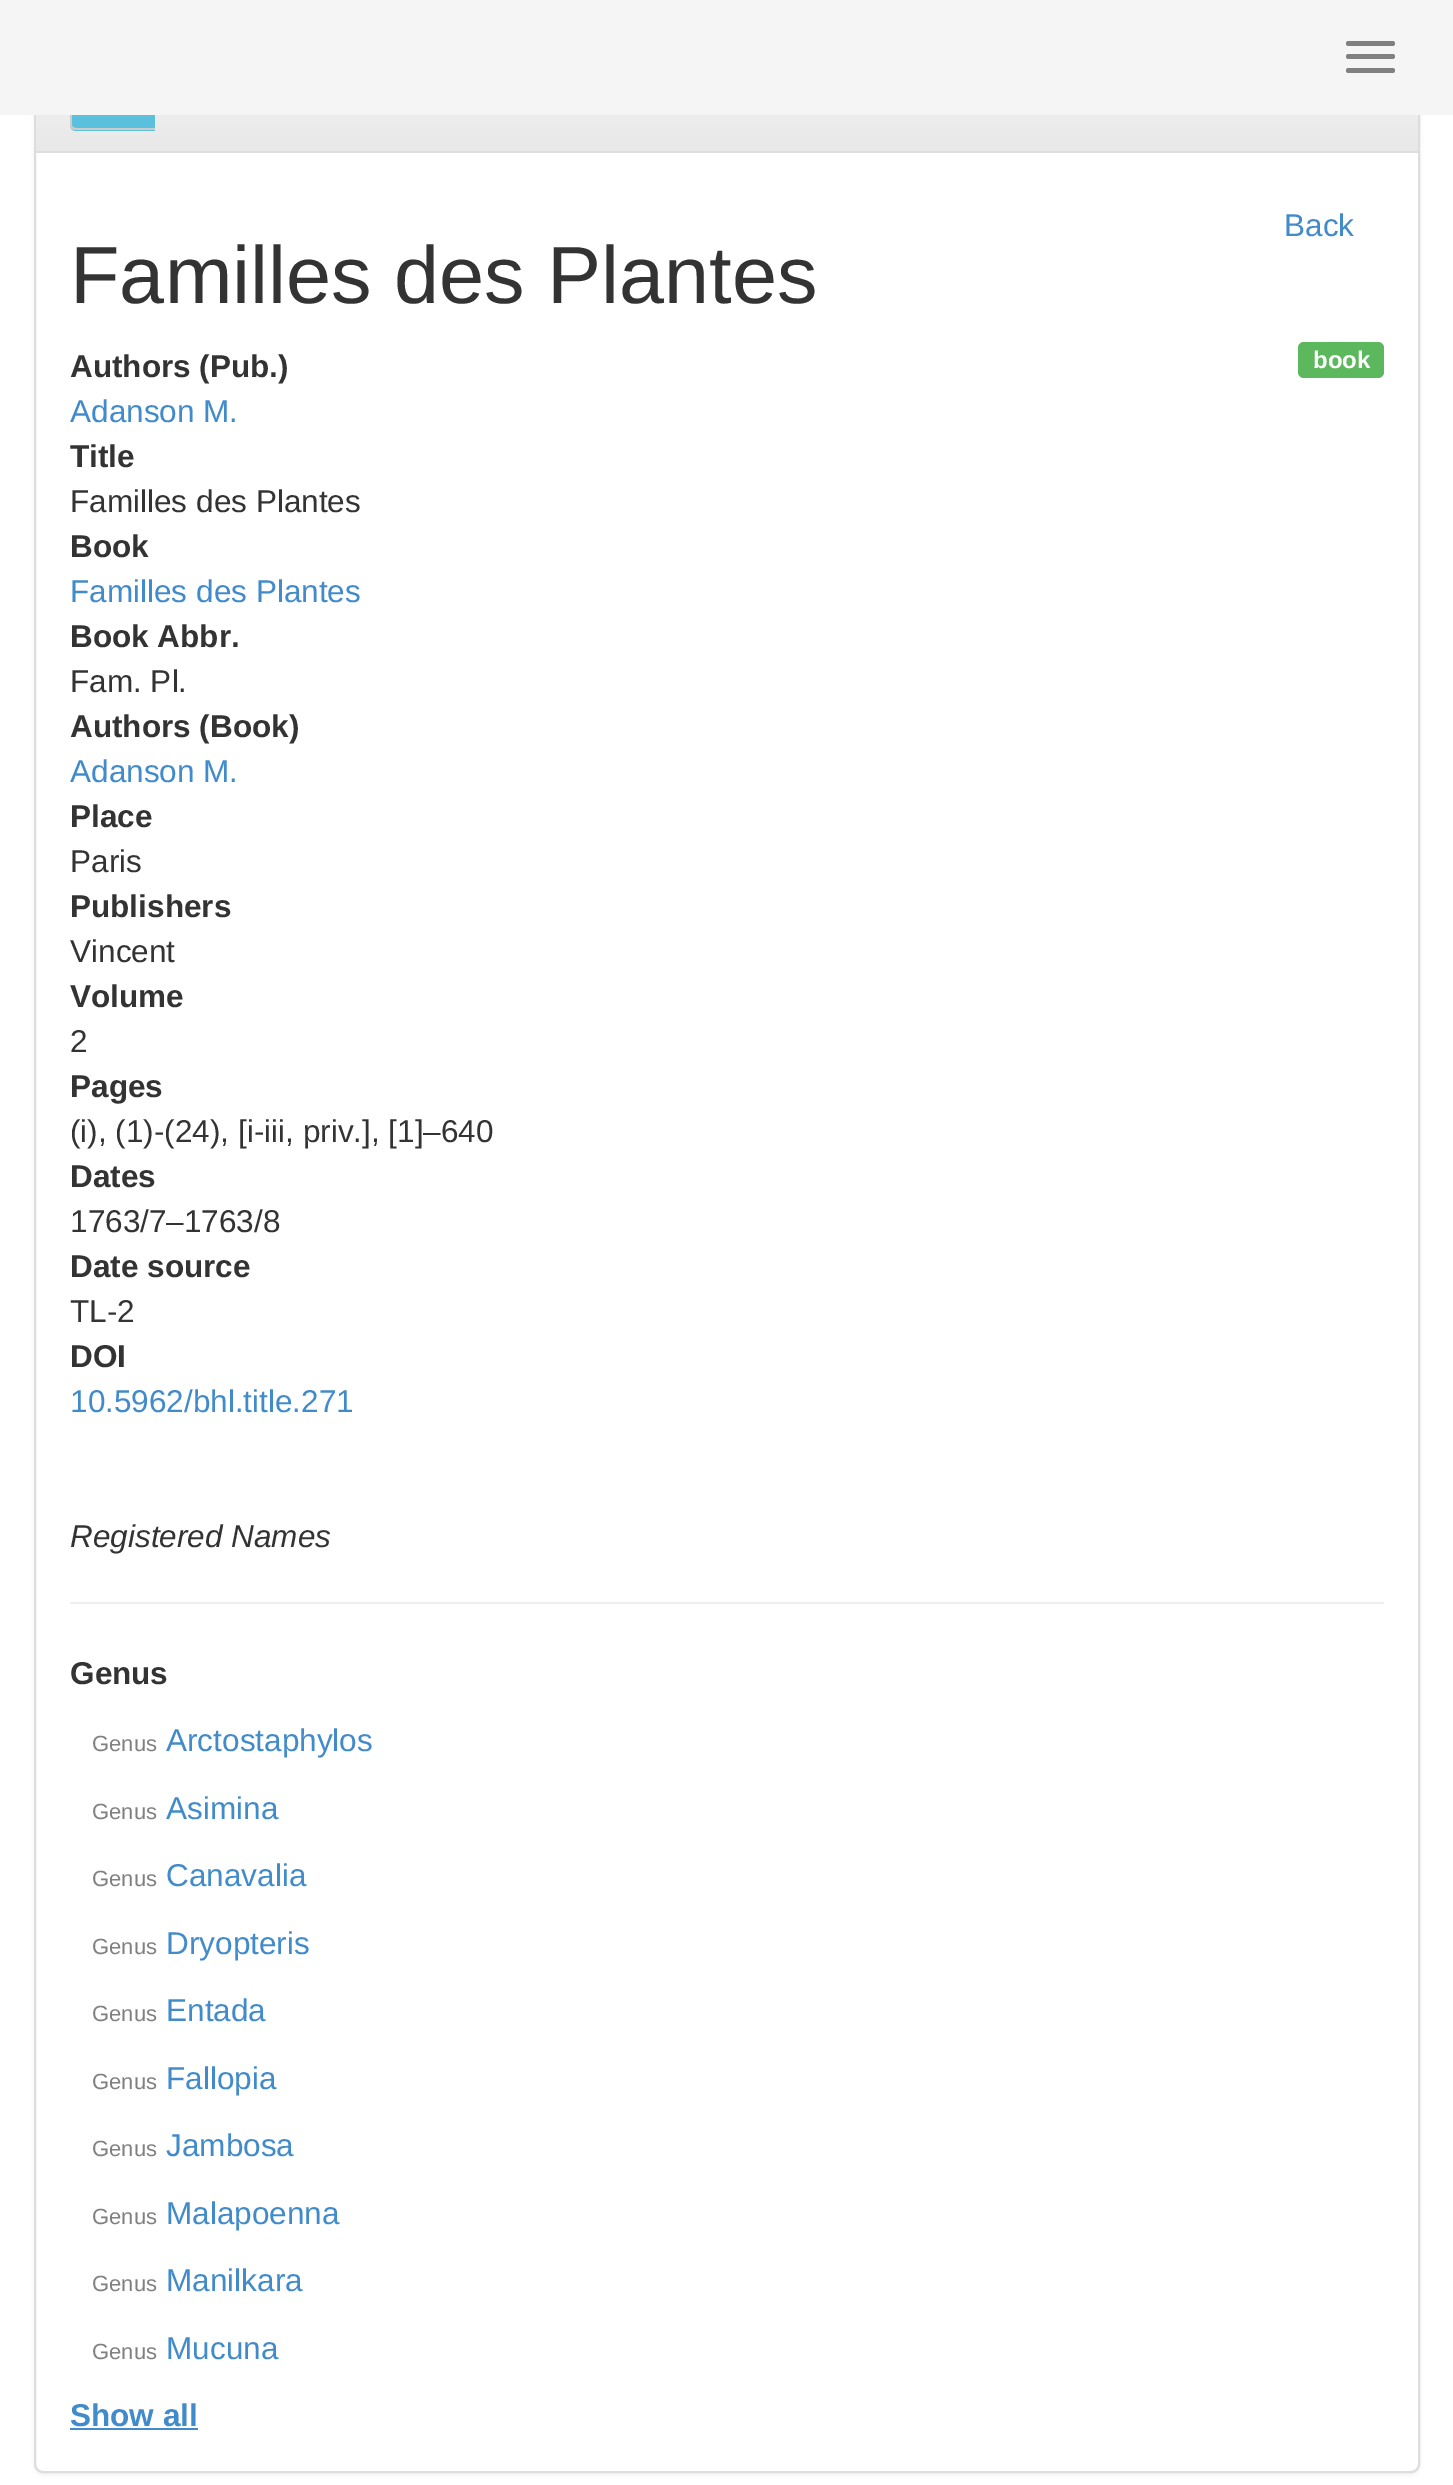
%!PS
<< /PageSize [1453 2485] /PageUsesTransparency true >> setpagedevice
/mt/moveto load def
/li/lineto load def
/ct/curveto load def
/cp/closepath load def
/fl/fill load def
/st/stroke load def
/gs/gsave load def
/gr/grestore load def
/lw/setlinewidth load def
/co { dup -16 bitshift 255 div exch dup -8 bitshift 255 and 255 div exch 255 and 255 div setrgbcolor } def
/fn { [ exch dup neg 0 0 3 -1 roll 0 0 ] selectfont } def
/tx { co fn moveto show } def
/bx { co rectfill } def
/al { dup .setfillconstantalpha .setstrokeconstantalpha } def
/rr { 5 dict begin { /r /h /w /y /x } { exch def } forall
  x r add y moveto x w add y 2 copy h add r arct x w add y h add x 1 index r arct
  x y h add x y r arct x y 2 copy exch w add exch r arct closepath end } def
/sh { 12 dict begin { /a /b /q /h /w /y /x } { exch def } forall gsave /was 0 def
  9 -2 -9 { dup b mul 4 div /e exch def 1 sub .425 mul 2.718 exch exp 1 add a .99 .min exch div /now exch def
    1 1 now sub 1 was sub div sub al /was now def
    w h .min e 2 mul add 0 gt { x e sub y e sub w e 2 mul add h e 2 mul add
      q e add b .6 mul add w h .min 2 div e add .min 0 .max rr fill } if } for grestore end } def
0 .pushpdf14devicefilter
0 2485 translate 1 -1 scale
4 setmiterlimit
0 0 1453 2485 16#FFFFFF bx
16#000000 co
34 61 1386 2414 9 2 .05 sh
16#FFFFFF co
35 60 1384 2412 8 rr gs fl gr
16#DDDDDD co
2 lw
st
gs 36 115 mt 1418 115 li 1418 151 li 36 151 li cp clip newpath
<< /ShadingType 2 /ColorSpace /DeviceRGB /Coords [727 61 727 151] /Extend [true true] /Function << /FunctionType 2 /Domain [0 1] /C0 [.961 .961 .961] /C1 [.91 .91 .91] /N 1 >> >> shfill gr
16#5BC0DE co
76 88 mt 155 88 li 155 131 li 76 131 li 72.5 131 70 128.5 70 125 ct 70 94 li 70 90.5 72.5 88 76 88 ct cp fl
16#CCCCCC co
76 88 mt 155 88 li 155 130 li 76 130 li 72 130 70 128 70 125 ct 70 94 li 70 90 72 88 76 88 ct cp 76 90 mt 155 90 li 155 128 li 76 128 li 74 128 72 127 72 125 ct 72 94 li 72 92 74 90 76 90 ct cp eofill
0 0 1453 115 16#F5F5F5 bx
16#808080 co
1346 41 49 5 2.5 rr fl
1346 54 49 5 2.5 rr fl
1346 68 49 5 2.5 rr fl
36 151 1382 2 16#DDDDDD bx
16#5CB85C co
1298 342 86 36 6 rr fl
70 1602 1314 2 16#EEEEEE bx
70 2428 128 2 16#428BCA bx
(Back) 1284 236 /LiberationSans-Regular 31.5 16#428BCA tx
(Familles des Plantes) 70 303 /LiberationSans-Regular 81 16#333333 tx
(Authors \(Pub.\)) 70 377 /LiberationSans-Bold 31.5 16#333333 tx
(Adanson M.) 70 422 /LiberationSans-Regular 31.5 16#428BCA tx
(Title) 70 467 /LiberationSans-Bold 31.5 16#333333 tx
(Familles des Plantes) 70 512 /LiberationSans-Regular 31.5 16#333333 tx
(Book) 70 557 /LiberationSans-Bold 31.5 16#333333 tx
(Familles des Plantes) 70 602 /LiberationSans-Regular 31.5 16#428BCA tx
(Book Abbr.) 70 647 /LiberationSans-Bold 31.5 16#333333 tx
(Fam. Pl.) 70 692 /LiberationSans-Regular 31.5 16#333333 tx
(Authors \(Book\)) 70 737 /LiberationSans-Bold 31.5 16#333333 tx
(Adanson M.) 70 782 /LiberationSans-Regular 31.5 16#428BCA tx
(Place) 70 827 /LiberationSans-Bold 31.5 16#333333 tx
(Paris) 70 872 /LiberationSans-Regular 31.5 16#333333 tx
(Publishers) 70 917 /LiberationSans-Bold 31.5 16#333333 tx
(Vincent) 70 962 /LiberationSans-Regular 31.5 16#333333 tx
(Volume) 70 1007 /LiberationSans-Bold 31.5 16#333333 tx
(2) 70 1052 /LiberationSans-Regular 31.5 16#333333 tx
(Pages) 70 1097 /LiberationSans-Bold 31.5 16#333333 tx
(\(i\), \(1\)-\(24\), [i-iii, priv.], [1]–640) 70 1142 /LiberationSans-Regular 31.5 16#333333 tx
(Dates) 70 1187 /LiberationSans-Bold 31.5 16#333333 tx
(1763/7–1763/8) 70 1232 /LiberationSans-Regular 31.5 16#333333 tx
(Date source) 70 1277 /LiberationSans-Bold 31.5 16#333333 tx
(TL-2) 70 1322 /LiberationSans-Regular 31.5 16#333333 tx
(DOI) 70 1367 /LiberationSans-Bold 31.5 16#333333 tx
(10.5962/bhl.title.271) 70 1412 /LiberationSans-Regular 31.5 16#428BCA tx
(book) 1313 368 /LiberationSans-Bold 24 16#FFFFFF tx
(Registered Names) 70 1547 /LiberationSans-Italic 31.5 16#333333 tx
(Genus) 70 1684 /LiberationSans-Bold 31.5 16#333333 tx
(Genus) 92 1751 /LiberationSans-Regular 22 16#808080 tx
(Arctostaphylos) 166 1751 /LiberationSans-Regular 31.5 16#428BCA tx
(Genus) 92 1819 /LiberationSans-Regular 22 16#808080 tx
(Asimina) 166 1819 /LiberationSans-Regular 31.5 16#428BCA tx
(Genus) 92 1886 /LiberationSans-Regular 22 16#808080 tx
(Canavalia) 166 1886 /LiberationSans-Regular 31.5 16#428BCA tx
(Genus) 92 1954 /LiberationSans-Regular 22 16#808080 tx
(Dryopteris) 166 1954 /LiberationSans-Regular 31.5 16#428BCA tx
(Genus) 92 2021 /LiberationSans-Regular 22 16#808080 tx
(Entada) 166 2021 /LiberationSans-Regular 31.5 16#428BCA tx
(Genus) 92 2089 /LiberationSans-Regular 22 16#808080 tx
(Fallopia) 166 2089 /LiberationSans-Regular 31.5 16#428BCA tx
(Genus) 92 2156 /LiberationSans-Regular 22 16#808080 tx
(Jambosa) 166 2156 /LiberationSans-Regular 31.5 16#428BCA tx
(Genus) 92 2224 /LiberationSans-Regular 22 16#808080 tx
(Malapoenna) 166 2224 /LiberationSans-Regular 31.5 16#428BCA tx
(Genus) 92 2291 /LiberationSans-Regular 22 16#808080 tx
(Manilkara) 166 2291 /LiberationSans-Regular 31.5 16#428BCA tx
(Genus) 92 2359 /LiberationSans-Regular 22 16#808080 tx
(Mucuna) 166 2359 /LiberationSans-Regular 31.5 16#428BCA tx
(Show all) 70 2426 /LiberationSans-Bold 31.5 16#428BCA tx
.poppdf14devicefilter showpage
